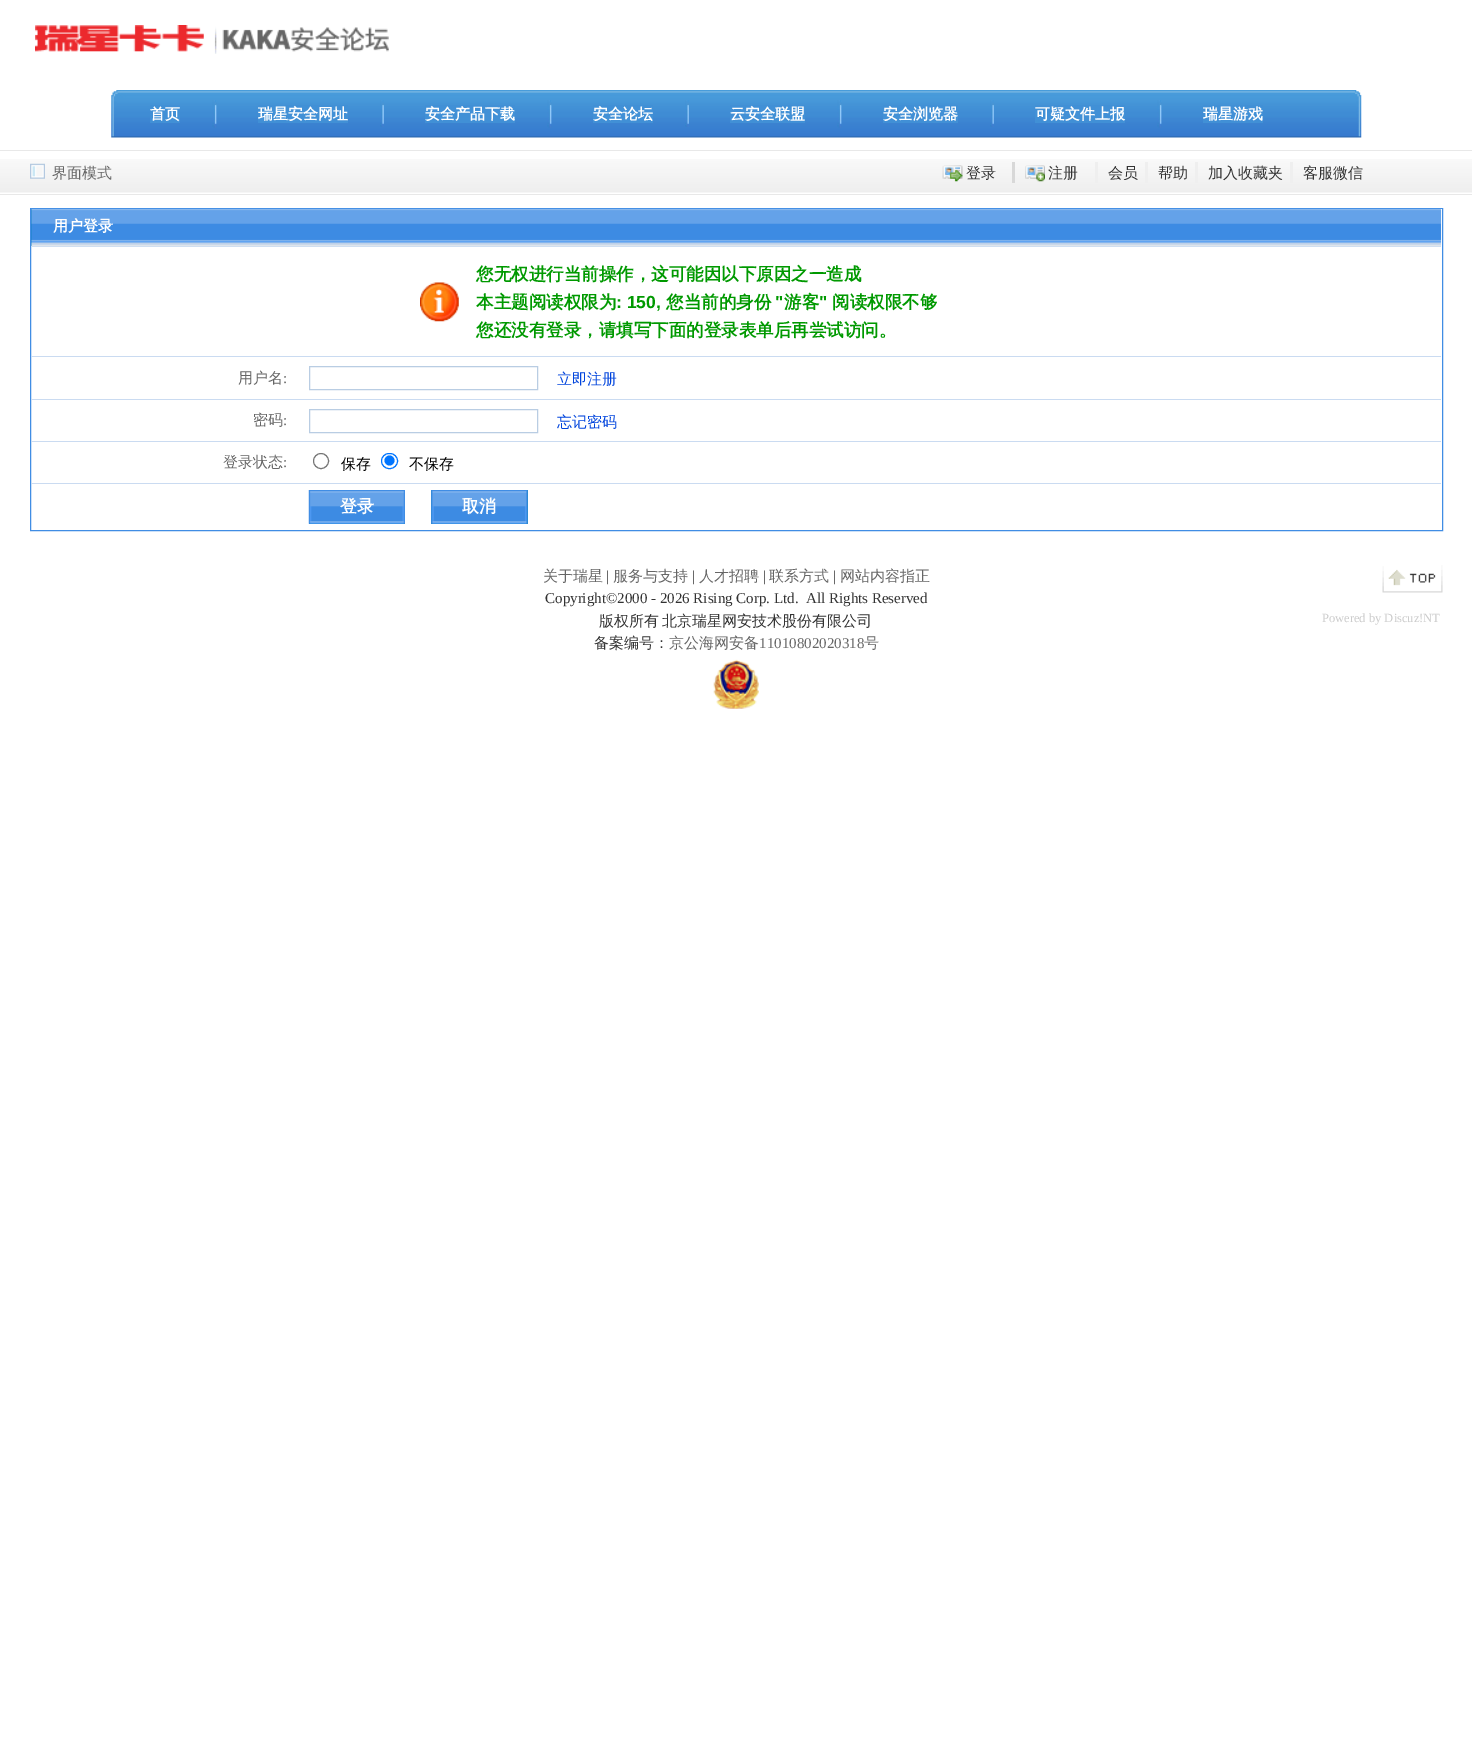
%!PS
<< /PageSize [1472 1743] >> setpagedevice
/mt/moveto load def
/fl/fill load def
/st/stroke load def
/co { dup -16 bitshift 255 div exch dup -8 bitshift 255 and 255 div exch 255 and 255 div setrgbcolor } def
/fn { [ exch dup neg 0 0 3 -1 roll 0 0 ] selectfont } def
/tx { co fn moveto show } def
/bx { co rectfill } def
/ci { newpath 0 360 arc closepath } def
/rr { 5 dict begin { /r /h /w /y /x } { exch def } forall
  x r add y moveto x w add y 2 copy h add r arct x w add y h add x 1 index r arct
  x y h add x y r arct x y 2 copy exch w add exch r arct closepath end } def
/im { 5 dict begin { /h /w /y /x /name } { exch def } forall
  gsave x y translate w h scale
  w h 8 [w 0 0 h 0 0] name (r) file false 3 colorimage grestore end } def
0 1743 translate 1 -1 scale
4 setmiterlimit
0 0 1472 1743 16#FFFFFF bx
(media/1.raw) 35 25 354 29 im
(media/2.raw) 111 90 1251 48 im
150 105 30 18 16#4190D6 bx
(media/3.raw) 212 100 5 28 im
258 105 90 18 16#4190D6 bx
(media/4.raw) 380 100 4 27 im
425 105 90 18 16#4190D6 bx
(media/3.raw) 547 100 5 28 im
593 105 60 18 16#4190D6 bx
(media/5.raw) 685 100 4 27 im
730 105 75 18 16#4190D6 bx
(media/3.raw) 837 100 5 28 im
883 105 75 18 16#4190D6 bx
(media/5.raw) 990 100 4 27 im
1035 105 90 18 16#4190D6 bx
(media/3.raw) 1157 100 5 28 im
1203 105 60 18 16#4190D6 bx
(media/6.raw) 0 159 1472 34 im
0 150 1472 1 16#E8E8E8 bx
0 194 1472 1 16#E8E8E8 bx
(media/7.raw) 30 163 15 16 im
1012 162 3 21 16#D8D8D8 bx
(media/8.raw) 942 165 21 17 im
1095 162 3 21 16#EFEFEF bx
(media/9.raw) 1025 165 20 17 im
1145 162 3 21 16#EFEFEF bx
1195 162 3 21 16#EFEFEF bx
1290 162 3 21 16#EFEFEF bx
16#408DE4 co
30.5 208.5 1412 322 rectstroke
31 209 1 37 16#1080C0 bx
31 246 1410 1 16#CADBF1 bx
(media/10.raw) 31 208 1411 39 im
(media/11.raw) 420 282 39 40 im
31 356 1410 1 16#CADBF1 bx
16#B9CDE3 co
309.5 366.5 228 23 rectstroke
31 399 1410 1 16#CADBF1 bx
16#B9CDE3 co
309.5 409.5 228 23 rectstroke
31 441 1410 1 16#CADBF1 bx
16#767676 co
321 461 7.5 ci st
16#0075FF co
381.5 453.5 16 15 7.5 rr st
389.5 460.5 5 ci fl
31 483 1410 1 16#CADBF1 bx
(media/12.raw) 308 490 97 34 im
431 490 97 34 16#1885C4 bx
(media/13.raw) 431 490 97 34 im
(media/14.raw) 713 659 46 50 im
(media/15.raw) 1382 565 61 28 im
(首页) 150 119 /WenQuanYiZenHei-Bold 15 16#FFFFFF tx
(瑞星安全网址) 258 119 /WenQuanYiZenHei-Bold 15 16#FFFFFF tx
(安全产品下载) 425 119 /WenQuanYiZenHei-Bold 15 16#FFFFFF tx
(安全论坛) 593 119 /WenQuanYiZenHei-Bold 15 16#FFFFFF tx
(云安全联盟) 730 119 /WenQuanYiZenHei-Bold 15 16#FFFFFF tx
(安全浏览器) 883 119 /WenQuanYiZenHei-Bold 15 16#FFFFFF tx
(可疑文件上报) 1035 119 /WenQuanYiZenHei-Bold 15 16#FFFFFF tx
(瑞星游戏) 1203 119 /WenQuanYiZenHei-Bold 15 16#FFFFFF tx
(界面模式) 52 178 /WenQuanYiZenHei-Medium 15 16#666666 tx
(登录) 966 178 /WenQuanYiZenHei-Medium 15 16#333333 tx
(注册) 1048 178 /WenQuanYiZenHei-Medium 15 16#333333 tx
(会员) 1108 178 /WenQuanYiZenHei-Medium 15 16#333333 tx
(帮助) 1158 178 /WenQuanYiZenHei-Medium 15 16#333333 tx
(加入收藏夹) 1208 178 /WenQuanYiZenHei-Medium 15 16#333333 tx
(客服微信) 1303 178 /WenQuanYiZenHei-Medium 15 16#333333 tx
(用户登录) 53 231 /WenQuanYiZenHei-Bold 15 16#FFFFFF tx
(您无权进行当前操作，这可能因以下原因之一造成) 476 280 /WenQuanYiZenHei-Bold 17.5 16#009900 tx
(本主题阅读权限为) 476 308 /WenQuanYiZenHei-Bold 17.5 16#009900 tx
(: 150,) 616 308 /LiberationSans-Bold 17.5 16#009900 tx
(您当前的身份) 666 308 /WenQuanYiZenHei-Bold 17.5 16#009900 tx
(") 775 308 /LiberationSans-Bold 17.5 16#009900 tx
(游客) 784 308 /WenQuanYiZenHei-Bold 17.5 16#009900 tx
(") 819 308 /LiberationSans-Bold 17.5 16#009900 tx
(阅读权限不够) 832 308 /WenQuanYiZenHei-Bold 17.5 16#009900 tx
(您还没有登录，请填写下面的登录表单后再尝试访问。) 476 336 /WenQuanYiZenHei-Bold 17.5 16#009900 tx
(用户名) 238 383 /WenQuanYiZenHei-Medium 15 16#666666 tx
(:) 283 383 /LiberationSerif-Regular 15 16#666666 tx
(立即注册) 557 384 /WenQuanYiZenHei-Medium 15 16#0044DD tx
(密码) 253 425 /WenQuanYiZenHei-Medium 15 16#666666 tx
(:) 283 425 /LiberationSerif-Regular 15 16#666666 tx
(忘记密码) 557 427 /WenQuanYiZenHei-Medium 15 16#0044DD tx
(登录状态) 223 467 /WenQuanYiZenHei-Medium 15 16#666666 tx
(:) 283 467 /LiberationSerif-Regular 15 16#666666 tx
(保存) 341 469 /WenQuanYiZenHei-Medium 15 16#000000 tx
(不保存) 409 469 /WenQuanYiZenHei-Medium 15 16#000000 tx
(登录) 340 512 /WenQuanYiZenHei-Bold 17 16#FFFFFF tx
(取消) 462 512 /WenQuanYiZenHei-Bold 17 16#FFFFFF tx
(关于瑞星) 543 581 /WenQuanYiZenHei-Medium 15 16#666666 tx
(|) 606 581 /LiberationSerif-Regular 15 16#333333 tx
(服务与支持) 613 581 /WenQuanYiZenHei-Medium 15 16#666666 tx
(|) 692 581 /LiberationSerif-Regular 15 16#333333 tx
(人才招聘) 699 581 /WenQuanYiZenHei-Medium 15 16#666666 tx
(|) 763 581 /LiberationSerif-Regular 15 16#333333 tx
(联系方式) 769 581 /WenQuanYiZenHei-Medium 15 16#666666 tx
(|) 833 581 /LiberationSerif-Regular 15 16#333333 tx
(网站内容指正) 840 581 /WenQuanYiZenHei-Medium 15 16#666666 tx
(Copyright©2000 - 2026 Rising Corp. Ltd.  All Rights Reserved) 545 603 /LiberationSerif-Regular 15 16#333333 tx
/WenQuanYiZenHei-Medium 15 fn
599 626 mt -1 0 32 (版权所有 北京瑞星网安技术股份有限公司) widthshow
(备案编号：) 594 648 /WenQuanYiZenHei-Medium 15 16#333333 tx
(京公海网安备) 669 648 /WenQuanYiZenHei-Medium 15 16#666666 tx
(11010802020318) 759 648 /LiberationSerif-Regular 15 16#666666 tx
(号) 864 648 /WenQuanYiZenHei-Medium 15 16#666666 tx
(Powered by Discuz!NT) 1322 622 /LiberationSerif-Regular 12.5 16#CCCCCC tx
showpage
